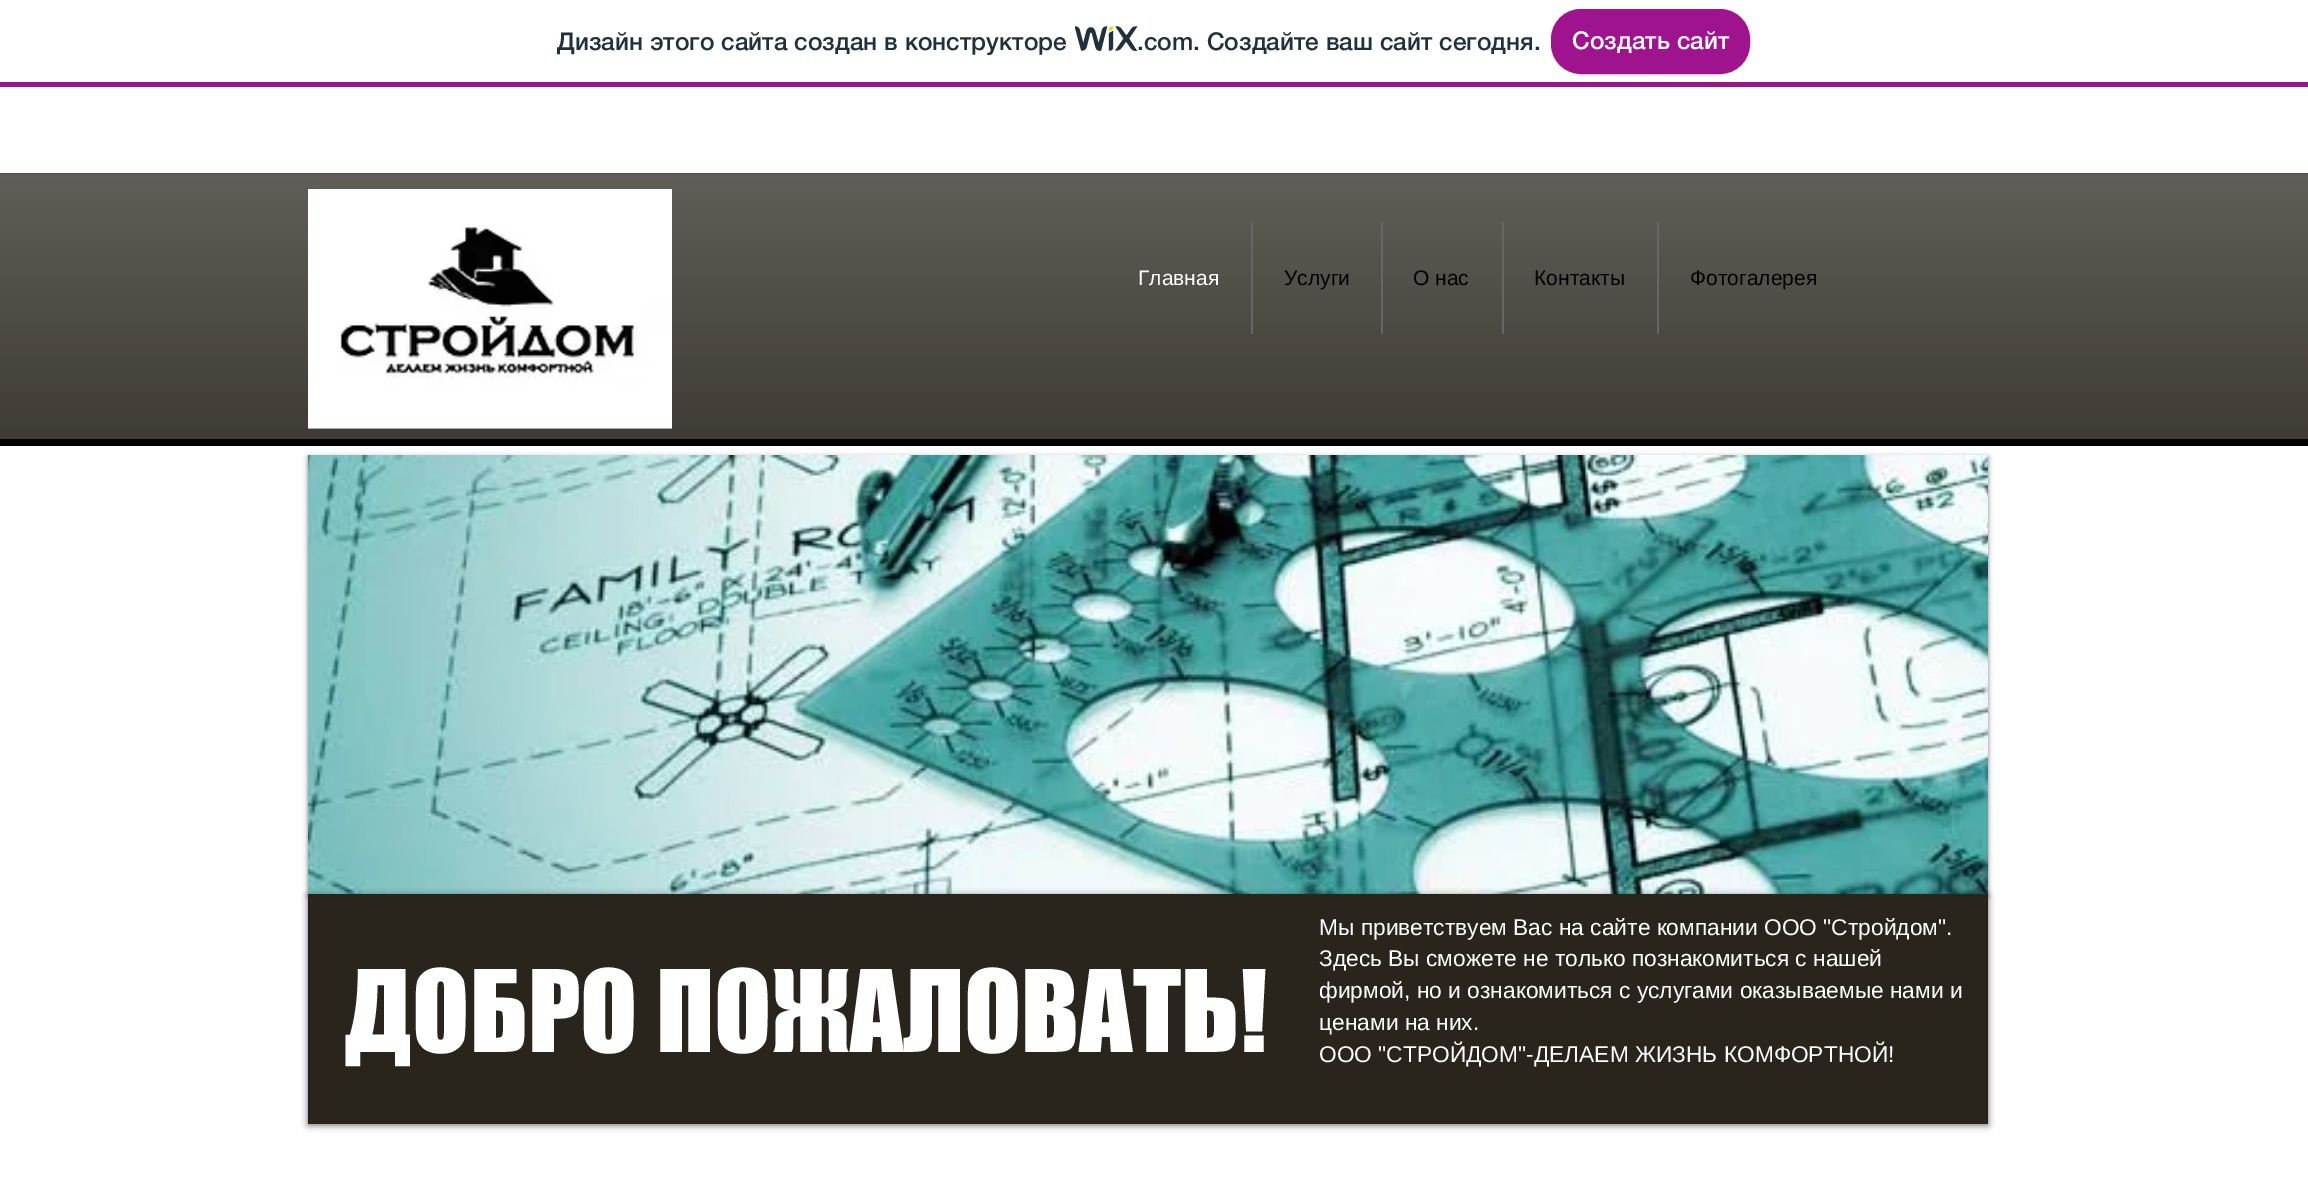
%!PS
<< /PageSize [2308 1179] /PageUsesTransparency true >> setpagedevice
/fl/fill load def
/st/stroke load def
/gs/gsave load def
/gr/grestore load def
/lw/setlinewidth load def
/co { dup -16 bitshift 255 div exch dup -8 bitshift 255 and 255 div exch 255 and 255 div setrgbcolor } def
/fn { [ exch dup neg 0 0 3 -1 roll 0 0 ] selectfont } def
/tx { co fn moveto show } def
/bx { co rectfill } def
/al { dup .setfillconstantalpha .setstrokeconstantalpha } def
/rr { 5 dict begin { /r /h /w /y /x } { exch def } forall
  x r add y moveto x w add y 2 copy h add r arct x w add y h add x 1 index r arct
  x y h add x y r arct x y 2 copy exch w add exch r arct closepath end } def
/sh { 12 dict begin { /a /b /q /h /w /y /x } { exch def } forall gsave /was 0 def
  9 -2 -9 { dup b mul 4 div /e exch def 1 sub .425 mul 2.718 exch exp 1 add a .99 .min exch div /now exch def
    1 1 now sub 1 was sub div sub al /was now def
    w h .min e 2 mul add 0 gt { x e sub y e sub w e 2 mul add h e 2 mul add
      q e add b .6 mul add w h .min 2 div e add .min 0 .max rr fill } if } for grestore end } def
/im { 5 dict begin { /h /w /y /x /name } { exch def } forall
  gsave x y translate w h scale
  w h 8 [w 0 0 h 0 0] name (r) file false 3 colorimage grestore end } def
0 .pushpdf14devicefilter
0 1179 translate 1 -1 scale
4 setmiterlimit
0 0 2308 1179 16#FFFFFF bx
0 82 2308 5 16#A0138E bx
(media/1.raw) 1075 26 63 26 im
1552 10 197 63 29 rr gs fl gr
2 lw
st
0 173 2308 266 16#29251D bx
0 439 2308 7 16#000000 bx
(media/2.raw) 0 173 2308 267 im
(media/3.raw) 308 189 364 240 im
1251 222 2 112 16#666666 bx
1381 222 2 112 16#666666 bx
1502 222 2 112 16#666666 bx
1657 222 2 112 16#666666 bx
16#000000 co
308 457 1680 439 0 2.5 .5 sh
(media/4.raw) 308 455 1680 439 im
308 896 1680 229 0 3.5 .6 sh
308 894 1680 230 16#29251D bx
(Дизайн этого сайта создан в конструкторе) 557 50 /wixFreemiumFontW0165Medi-Medium 24.5 16#20303C tx
(.com) 1137 50 /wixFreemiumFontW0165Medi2-Medium 24.5 16#20303C tx
(. Создайте ваш сайт сегодня.) 1193 50 /wixFreemiumFontW0165Medi-Medium 24.5 16#20303C tx
(Создать сайт) 1572 49 /wixFreemiumFontW0165Medi-Medium 24.5 16#FFFFFF tx
(Главная) 1138 285 /LiberationSans-Regular 21 16#FFFFFF tx
(Услуги) 1284 285 /LiberationSans-Regular 21 16#000000 tx
(О нас) 1413 285 /LiberationSans-Regular 21 16#000000 tx
(Контакты) 1534 285 /LiberationSans-Regular 21 16#000000 tx
(Фотогалерея) 1690 285 /LiberationSans-Regular 21 16#000000 tx
(ДОБРО ПОЖАЛОВАТЬ!) 344 1052 /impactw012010-Regular 105 16#FFFFFF tx
(Мы приветствуем Вас на сайте компании ООО "Стройдом".) 1319 935 /LiberationSans-Regular 22.75 16#FFFFFF tx
(Здесь Вы сможете не только познакомиться с нашей) 1319 966 /LiberationSans-Regular 22.75 16#FFFFFF tx
(фирмой, но и ознакомиться с услугами оказываемые нами и) 1319 998 /LiberationSans-Regular 22.75 16#FFFFFF tx
(ценами на них.) 1319 1030 /LiberationSans-Regular 22.75 16#FFFFFF tx
(ООО "СТРОЙДОМ"-ДЕЛАЕМ ЖИЗНЬ КОМФОРТНОЙ!) 1319 1062 /LiberationSans-Regular 22.75 16#FFFFFF tx
.poppdf14devicefilter showpage
